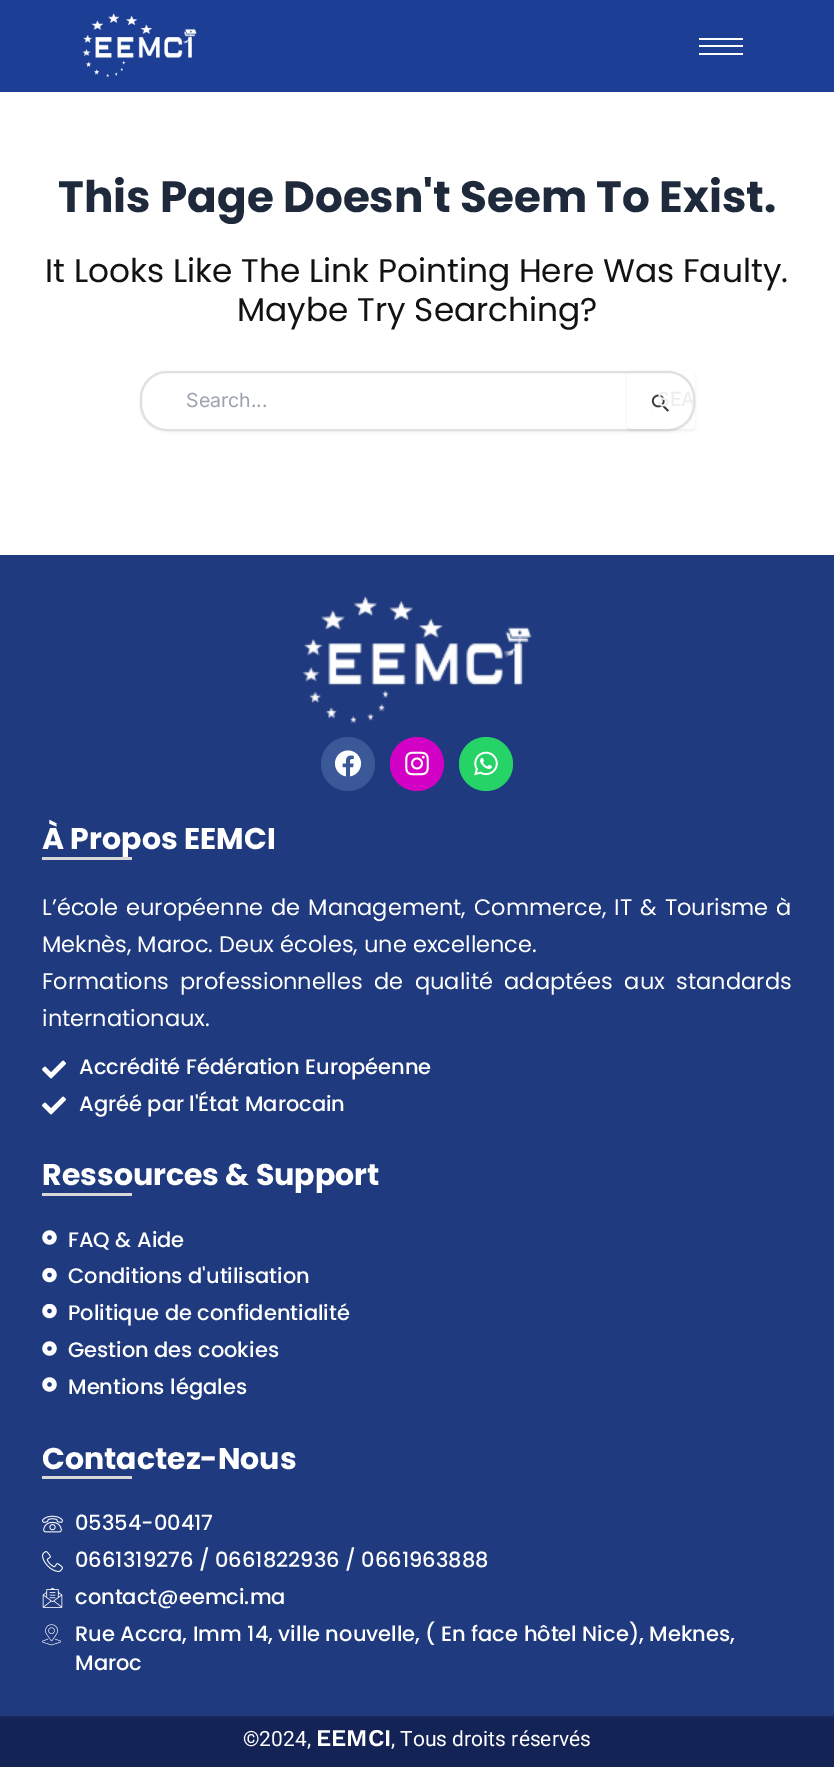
%!PS
<< /PageSize [834 1767] /PageUsesTransparency true >> setpagedevice
/mt/moveto load def
/li/lineto load def
/ct/curveto load def
/cp/closepath load def
/fl/fill load def
/st/stroke load def
/gs/gsave load def
/gr/grestore load def
/lw/setlinewidth load def
/co { dup -16 bitshift 255 div exch dup -8 bitshift 255 and 255 div exch 255 and 255 div setrgbcolor } def
/fn { [ exch dup neg 0 0 3 -1 roll 0 0 ] selectfont } def
/tx { co fn moveto show } def
/bx { co rectfill } def
/al { dup .setfillconstantalpha .setstrokeconstantalpha } def
/ci { newpath 0 360 arc closepath } def
/rr { 5 dict begin { /r /h /w /y /x } { exch def } forall
  x r add y moveto x w add y 2 copy h add r arct x w add y h add x 1 index r arct
  x y h add x y r arct x y 2 copy exch w add exch r arct closepath end } def
/sh { 12 dict begin { /a /b /q /h /w /y /x } { exch def } forall gsave /was 0 def
  9 -2 -9 { dup b mul 4 div /e exch def 1 sub .425 mul 2.718 exch exp 1 add a .99 .min exch div /now exch def
    1 1 now sub 1 was sub div sub al /was now def
    w h .min e 2 mul add 0 gt { x e sub y e sub w e 2 mul add h e 2 mul add
      q e add b .6 mul add w h .min 2 div e add .min 0 .max rr fill } if } for grestore end } def
/im { 5 dict begin { /h /w /y /x /name } { exch def } forall
  gsave x y translate w h scale
  w h 8 [w 0 0 h 0 0] name (r) file false 3 colorimage grestore end } def
0 .pushpdf14devicefilter
0 1767 translate 1 -1 scale
4 setmiterlimit
0 0 834 1767 16#FFFFFF bx
0 0 834 92 16#1C3E95 bx
(media/1.raw) 82 13 115 65 im
699 38 44 2 16#FFFFFF bx
699 45 44 2 16#FFFFFF bx
699 53 44 2 16#FFFFFF bx
16#000000 co
140 372 555 60 27 1.5 .05 sh
16#FFFFFF co
141 372 553 58 26 rr gs fl gr
16#E0E0E0 co
2 lw
st
(media/2.raw) 651 394 18 18 im
gs
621 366 mt 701 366 li 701 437 li 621 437 li cp 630 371 mt 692 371 li 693.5 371 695 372.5 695 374 ct 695 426 li 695 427.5 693.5 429 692 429 ct 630 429 li 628.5 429 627 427.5 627 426 ct 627 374 li 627 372.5 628.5 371 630 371 ct cp eoclip newpath
16#000000 co
627 372 68 59 3 1.5 .05 sh
gr
0 555 834 1161 16#1F3A7E bx
(media/3.raw) 302 596 230 128 im
16#3B5998 co
348 764 27 ci fl
(media/4.raw) 335 750 27 27 im
16#D300C5 co
417 764 27 ci fl
(media/5.raw) 405 751 24 25 im
16#25D366 co
486 764 27 ci fl
(media/6.raw) 474 751 24 25 im
42 857 90 3 16#D9D9D9 bx
(media/7.raw) 42 1060 24 19 im
(media/7.raw) 42 1096 24 19 im
42 1193 90 3 16#D9D9D9 bx
(media/8.raw) 42 1230 15 15 im
(media/9.raw) 42 1268 15 15 im
(media/9.raw) 42 1304 15 15 im
(media/8.raw) 42 1341 15 15 im
(media/8.raw) 42 1377 15 15 im
42 1476 90 3 16#D9D9D9 bx
(media/10.raw) 42 1515 21 18 im
(media/11.raw) 42 1551 21 21 im
(media/12.raw) 42 1587 21 21 im
(media/13.raw) 42 1624 19 22 im
0 1718 834 49 16#142355 bx
0 1716 834 2 16#1B265D bx
(This Page Doesn't Seem To Exist.) 58 212 /Poppins-Bold 43.75 16#1E293B tx
(It Looks Like The Link Pointing Here Was Faulty.) 45 282 /Poppins-Regular 32.8 16#121212 tx
(Maybe Try Searching?) 237 321 /Poppins-Regular 32.8 16#121212 tx
(Search...) 186 407 /Inter-Regular 19.5 16#9CA3AF tx
(SEA) 657 406 /Inter-Medium 19.5 16#EEEEEE tx
(À Propos EEMCI) 42 849 /Poppins-Bold 30 16#FFFFFF tx
/Poppins-Regular 22.5 fn
42 915 mt 2 0 32 (L’école européenne de Management, Commerce, IT & Tourisme à) widthshow
(Meknès, Maroc. Deux écoles, une excellence.) 42 952 /Poppins-Regular 22.5 16#FFFFFF tx
42 989 mt 5.5 0 32 (Formations professionnelles de qualité adaptées aux standards) widthshow
(internationaux.) 42 1026 /Poppins-Regular 22.5 16#FFFFFF tx
(Accrédité Fédération Européenne) 79 1074 /Poppins-Medium 21 16#FFFFFF tx
(Agréé par l'État Marocain) 79 1111 /Poppins-Medium 21 16#FFFFFF tx
(Ressources & Support) 42 1185 /Poppins-Bold 30 16#FFFFFF tx
(FAQ & Aide) 68 1247 /Poppins-Medium 21 16#FFFFFF tx
(Conditions d'utilisation) 68 1283 /Poppins-Medium 21 16#FFFFFF tx
(Politique de confidentialité) 68 1320 /Poppins-Medium 21 16#FFFFFF tx
(Gestion des cookies) 68 1357 /Poppins-Medium 21 16#FFFFFF tx
(Mentions légales) 68 1394 /Poppins-Medium 21 16#FFFFFF tx
(Contactez-Nous) 42 1469 /Poppins-Bold 30 16#FFFFFF tx
(05354-00417) 75 1530 /Poppins-Medium 21 16#FFFFFF tx
(0661319276 / 0661822936 / 0661963888) 75 1567 /Poppins-Medium 21 16#FFFFFF tx
(contact@eemci.ma) 75 1604 /Poppins-Medium 21 16#FFFFFF tx
(Rue Accra, Imm 14, ville nouvelle, \( En face hôtel Nice\), Meknes,) 75 1641 /Poppins-Medium 21 16#FFFFFF tx
(Maroc) 75 1670 /Poppins-Medium 21 16#FFFFFF tx
(©2024,) 243 1746 /Roboto-Regular 21 16#FFFFFF tx
(EEMCI) 316 1746 /WorkSans-SemiBold 24 16#FFFFFF tx
(, Tous droits réservés) 391 1746 /Roboto-Regular 21 16#FFFFFF tx
.poppdf14devicefilter showpage
